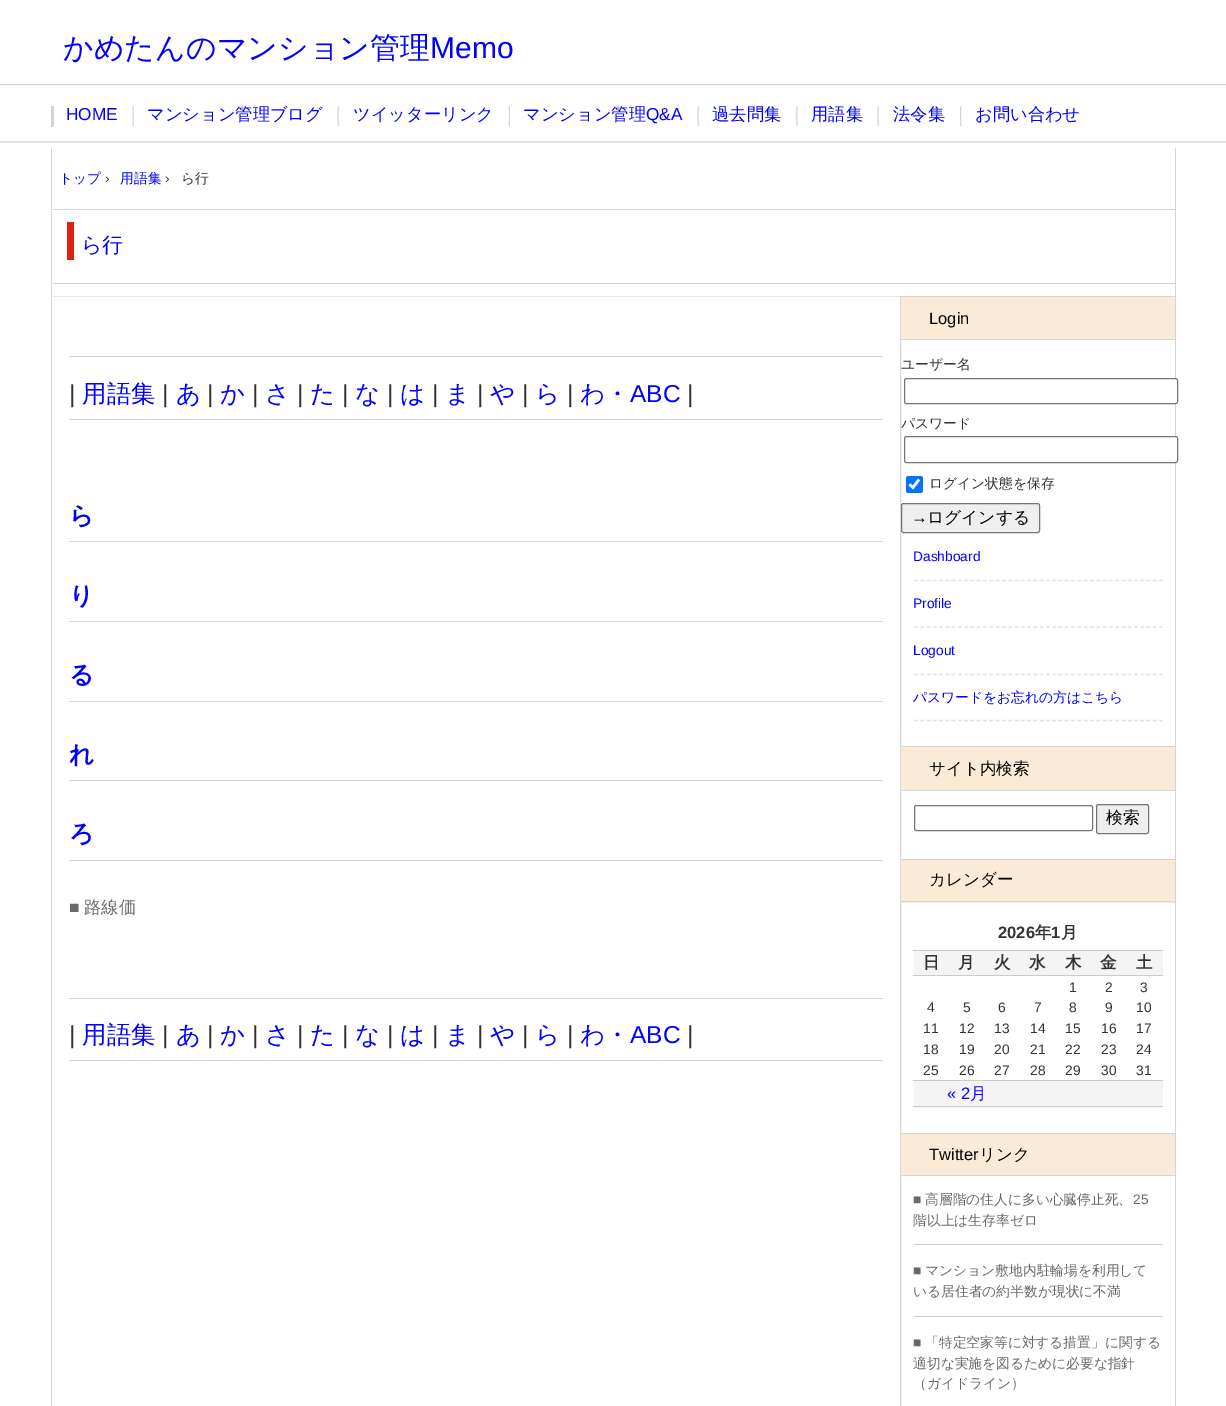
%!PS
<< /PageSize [1226 1406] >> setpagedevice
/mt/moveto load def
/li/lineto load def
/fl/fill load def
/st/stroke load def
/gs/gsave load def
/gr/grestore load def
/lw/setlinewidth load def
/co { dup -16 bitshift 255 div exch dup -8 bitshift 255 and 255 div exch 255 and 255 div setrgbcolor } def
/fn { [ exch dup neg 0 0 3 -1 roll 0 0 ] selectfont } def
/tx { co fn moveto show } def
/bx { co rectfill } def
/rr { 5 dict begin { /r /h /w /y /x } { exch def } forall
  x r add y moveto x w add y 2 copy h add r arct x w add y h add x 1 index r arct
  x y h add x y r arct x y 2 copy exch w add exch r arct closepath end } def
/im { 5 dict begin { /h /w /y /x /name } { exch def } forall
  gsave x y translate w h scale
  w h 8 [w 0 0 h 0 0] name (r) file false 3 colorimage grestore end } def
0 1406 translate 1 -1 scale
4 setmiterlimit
0 0 1226 1406 16#FFFFFF bx
(media/1.raw) 0 85 1226 58 im
0 84 1226 1 16#D5D5D5 bx
51 106 3 21 16#D5D5D5 bx
(media/2.raw) 132 106 2 21 im
(media/2.raw) 337 106 2 21 im
(media/3.raw) 508 106 2 21 im
(media/2.raw) 697 106 2 21 im
(media/4.raw) 796 106 2 21 im
(media/2.raw) 877 106 2 21 im
(media/5.raw) 960 106 2 21 im
(media/6.raw) 900 208 2 1198 im
1175 148 1 1258 16#D5D5D5 bx
51 148 1 1258 16#D5D5D5 bx
900 210 2 86 16#FFFFFF bx
67 222 7 38 16#DC2314 bx
53 209 1122 1 16#D5D5D5 bx
53 283 1122 1 16#D5D5D5 bx
53 296 847 1 16#E6E6E6 bx
69 356 814 1 16#D5D5D5 bx
69 419 814 1 16#D5D5D5 bx
69 541 814 1 16#D5D5D5 bx
69 621 814 1 16#D5D5D5 bx
69 701 814 1 16#D5D5D5 bx
69 780 814 1 16#D5D5D5 bx
69 860 814 1 16#D5D5D5 bx
69 998 814 1 16#D5D5D5 bx
69 1060 814 1 16#D5D5D5 bx
901 297 274 42 16#FAEBD7 bx
901 296 274 1 16#D5D5D5 bx
901 339 274 1 16#D5D5D5 bx
16#FFFFFF co
904.5 378.5 273 25 2 rr gs fl gr
16#767676 co
st
16#FFFFFF co
904.5 436.5 273 26 2 rr gs fl gr
16#767676 co
st
16#0075FF co
906 476 17 17 2.5 rr fl
16#FFFFFF co
2.6 lw
909.5 484.5 mt 913 487.5 li 919 479.5 li st
16#EFEFEF co
901.5 503.5 138 29 2 rr gs fl gr
16#767676 co
1 lw
st
16#E2E2E2 co
1.2 lw
[3.75 2.54] 0 setdash
914 580.5 mt 1162.5 580.5 li st
914 627 mt 1162.5 627 li st
914 674.5 mt 1162.5 674.5 li st
914 720.5 mt 1162.5 720.5 li st
901 747 274 43 16#FAEBD7 bx
901 746 274 1 16#D5D5D5 bx
901 790 274 1 16#D5D5D5 bx
16#767676 co
1 lw
[] 0 setdash
914.5 805.5 178 25 2 rr st
16#EFEFEF co
1096.5 804.5 52 29 2 rr gs fl gr
16#767676 co
st
901 860 274 43 16#FAEBD7 bx
901 859 274 1 16#D5D5D5 bx
901 901 274 1 16#D5D5D5 bx
914 951 249 24 16#F4F4F4 bx
913 950 250 1 16#CCCCCC bx
913 975 250 1 16#CCCCCC bx
913 1080 250 1 16#CCCCCC bx
914 1081 249 27 16#F4F4F4 bx
913 1106 250 1 16#CCCCCC bx
901 1134 274 41 16#FAEBD7 bx
901 1133 274 1 16#D5D5D5 bx
901 1175 274 1 16#D5D5D5 bx
914 1244 249 1 16#CCCCCC bx
914 1316 249 1 16#CCCCCC bx
(かめたんのマンション管理) 63 58 /WenQuanYiZenHei-Medium 30 16#0000FF tx
(Memo) 430 58 /LiberationSans-Regular 30 16#0000FF tx
(HOME) 66 120 /LiberationSans-Regular 17.25 16#0000FF tx
(マンション管理ブログ) 147 120 /WenQuanYiZenHei-Medium 17.25 16#0000FF tx
(ツイッターリンク) 353 120 /WenQuanYiZenHei-Medium 17.25 16#0000FF tx
(マンション管理) 523 120 /WenQuanYiZenHei-Medium 17.25 16#0000FF tx
(Q&A) 646 120 /LiberationSans-Regular 17.25 16#0000FF tx
(過去問集) 712 120 /WenQuanYiZenHei-Medium 17.25 16#0000FF tx
(用語集) 811 120 /WenQuanYiZenHei-Medium 17.25 16#0000FF tx
(法令集) 893 120 /WenQuanYiZenHei-Medium 17.25 16#0000FF tx
(お問い合わせ) 975 120 /WenQuanYiZenHei-Medium 17.25 16#0000FF tx
(トップ) 59 183 /WenQuanYiZenHei-Medium 13.75 16#0000FF tx
(›) 105 183 /LiberationSans-Regular 13.75 16#333333 tx
(用語集) 120 183 /WenQuanYiZenHei-Medium 13.75 16#0000FF tx
(›) 165 183 /LiberationSans-Regular 13.75 16#333333 tx
(ら行) 181 183 /WenQuanYiZenHei-Medium 13.75 16#333333 tx
(ら行) 81 252 /WenQuanYiZenHei-Medium 21 16#0000FF tx
(|) 69 402 /LiberationSans-Regular 24.5 16#333333 tx
(用語集) 82 402 /WenQuanYiZenHei-Medium 24.5 16#0000FF tx
(|) 162 402 /LiberationSans-Regular 24.5 16#333333 tx
(あ) 176 402 /WenQuanYiZenHei-Medium 24.5 16#0000FF tx
(|) 207 402 /LiberationSans-Regular 24.5 16#333333 tx
(か) 220 402 /WenQuanYiZenHei-Medium 24.5 16#0000FF tx
(|) 252 402 /LiberationSans-Regular 24.5 16#333333 tx
(さ) 265 402 /WenQuanYiZenHei-Medium 24.5 16#0000FF tx
(|) 297 402 /LiberationSans-Regular 24.5 16#333333 tx
(た) 310 402 /WenQuanYiZenHei-Medium 24.5 16#0000FF tx
(|) 342 402 /LiberationSans-Regular 24.5 16#333333 tx
(な) 355 402 /WenQuanYiZenHei-Medium 24.5 16#0000FF tx
(|) 387 402 /LiberationSans-Regular 24.5 16#333333 tx
(は) 400 402 /WenQuanYiZenHei-Medium 24.5 16#0000FF tx
(|) 432 402 /LiberationSans-Regular 24.5 16#333333 tx
(ま) 445 402 /WenQuanYiZenHei-Medium 24.5 16#0000FF tx
(|) 477 402 /LiberationSans-Regular 24.5 16#333333 tx
(や) 490 402 /WenQuanYiZenHei-Medium 24.5 16#0000FF tx
(|) 522 402 /LiberationSans-Regular 24.5 16#333333 tx
(ら) 535 402 /WenQuanYiZenHei-Medium 24.5 16#0000FF tx
(|) 567 402 /LiberationSans-Regular 24.5 16#333333 tx
(わ・) 580 402 /WenQuanYiZenHei-Medium 24.5 16#0000FF tx
(ABC) 630 402 /LiberationSans-Regular 24.5 16#0000FF tx
(|) 687 402 /LiberationSans-Regular 24.5 16#333333 tx
(ら) 69 524 /WenQuanYiZenHei-Bold 24.5 16#0000FF tx
(り) 69 604 /WenQuanYiZenHei-Bold 24.5 16#0000FF tx
(る) 69 683 /WenQuanYiZenHei-Bold 24.5 16#0000FF tx
(れ) 69 763 /WenQuanYiZenHei-Bold 24.5 16#0000FF tx
(ろ) 69 842 /WenQuanYiZenHei-Bold 24.5 16#0000FF tx
(■) 69 913 /LiberationSans-Regular 17.25 16#696969 tx
(路線価) 84 913 /WenQuanYiZenHei-Medium 17.25 16#696969 tx
(|) 69 1043 /LiberationSans-Regular 24.5 16#333333 tx
(用語集) 82 1043 /WenQuanYiZenHei-Medium 24.5 16#0000FF tx
(|) 162 1043 /LiberationSans-Regular 24.5 16#333333 tx
(あ) 176 1043 /WenQuanYiZenHei-Medium 24.5 16#0000FF tx
(|) 207 1043 /LiberationSans-Regular 24.5 16#333333 tx
(か) 220 1043 /WenQuanYiZenHei-Medium 24.5 16#0000FF tx
(|) 252 1043 /LiberationSans-Regular 24.5 16#333333 tx
(さ) 265 1043 /WenQuanYiZenHei-Medium 24.5 16#0000FF tx
(|) 297 1043 /LiberationSans-Regular 24.5 16#333333 tx
(た) 310 1043 /WenQuanYiZenHei-Medium 24.5 16#0000FF tx
(|) 342 1043 /LiberationSans-Regular 24.5 16#333333 tx
(な) 355 1043 /WenQuanYiZenHei-Medium 24.5 16#0000FF tx
(|) 387 1043 /LiberationSans-Regular 24.5 16#333333 tx
(は) 400 1043 /WenQuanYiZenHei-Medium 24.5 16#0000FF tx
(|) 432 1043 /LiberationSans-Regular 24.5 16#333333 tx
(ま) 445 1043 /WenQuanYiZenHei-Medium 24.5 16#0000FF tx
(|) 477 1043 /LiberationSans-Regular 24.5 16#333333 tx
(や) 490 1043 /WenQuanYiZenHei-Medium 24.5 16#0000FF tx
(|) 522 1043 /LiberationSans-Regular 24.5 16#333333 tx
(ら) 535 1043 /WenQuanYiZenHei-Medium 24.5 16#0000FF tx
(|) 567 1043 /LiberationSans-Regular 24.5 16#333333 tx
(わ・) 580 1043 /WenQuanYiZenHei-Medium 24.5 16#0000FF tx
(ABC) 630 1043 /LiberationSans-Regular 24.5 16#0000FF tx
(|) 687 1043 /LiberationSans-Regular 24.5 16#333333 tx
(Login) 929 324 /LiberationSans-Regular 16.5 16#000000 tx
(ユーザー名) 901 369 /WenQuanYiZenHei-Medium 13.75 16#333333 tx
(パスワード) 901 428 /WenQuanYiZenHei-Medium 13.75 16#333333 tx
(ログイン状態を保存) 929 488 /WenQuanYiZenHei-Medium 13.75 16#333333 tx
(→) 911 523 /LiberationSans-Regular 16.75 16#000000 tx
(ログインする) 927 523 /WenQuanYiZenHei-Medium 16.75 16#000000 tx
(Dashboard) 913 561 /LiberationSans-Regular 13.75 16#0000FF tx
(Profile) 913 608 /LiberationSans-Regular 13.75 16#0000FF tx
(Logout) 913 655 /LiberationSans-Regular 13.75 16#0000FF tx
(パスワードをお忘れの方はこちら) 913 702 /WenQuanYiZenHei-Medium 13.75 16#0000FF tx
(サイト内検索) 929 774 /WenQuanYiZenHei-Medium 16.5 16#000000 tx
(検索) 1106 823 /WenQuanYiZenHei-Medium 16.75 16#000000 tx
(カレンダー) 929 885 /WenQuanYiZenHei-Medium 16.5 16#000000 tx
(2026) 998 938 /LiberationSans-Bold 16.5 16#333333 tx
(年) 1035 938 /WenQuanYiZenHei-Bold 16.5 16#333333 tx
(1) 1051 938 /LiberationSans-Bold 16.5 16#333333 tx
(月) 1061 938 /WenQuanYiZenHei-Bold 16.5 16#333333 tx
(日) 923 968 /WenQuanYiZenHei-Bold 16.5 16#333333 tx
(月) 958 968 /WenQuanYiZenHei-Bold 16.5 16#333333 tx
(火) 994 968 /WenQuanYiZenHei-Bold 16.5 16#333333 tx
(水) 1029 968 /WenQuanYiZenHei-Bold 16.5 16#333333 tx
(木) 1065 968 /WenQuanYiZenHei-Bold 16.5 16#333333 tx
(金) 1100 968 /WenQuanYiZenHei-Bold 16.5 16#333333 tx
(土) 1136 968 /WenQuanYiZenHei-Bold 16.5 16#333333 tx
(1) 1069 992 /LiberationSans-Regular 13.75 16#333333 tx
(2) 1105 992 /LiberationSans-Regular 13.75 16#333333 tx
(3) 1140 992 /LiberationSans-Regular 13.75 16#333333 tx
(4) 927 1012 /LiberationSans-Regular 13.75 16#333333 tx
(5) 963 1012 /LiberationSans-Regular 13.75 16#333333 tx
(6) 998 1012 /LiberationSans-Regular 13.75 16#333333 tx
(7) 1034 1012 /LiberationSans-Regular 13.75 16#333333 tx
(8) 1069 1012 /LiberationSans-Regular 13.75 16#333333 tx
(9) 1105 1012 /LiberationSans-Regular 13.75 16#333333 tx
(10) 1136 1012 /LiberationSans-Regular 13.75 16#333333 tx
(11) 923 1033 /LiberationSans-Regular 13.75 16#333333 tx
(12) 959 1033 /LiberationSans-Regular 13.75 16#333333 tx
(13) 994 1033 /LiberationSans-Regular 13.75 16#333333 tx
(14) 1030 1033 /LiberationSans-Regular 13.75 16#333333 tx
(15) 1065 1033 /LiberationSans-Regular 13.75 16#333333 tx
(16) 1101 1033 /LiberationSans-Regular 13.75 16#333333 tx
(17) 1136 1033 /LiberationSans-Regular 13.75 16#333333 tx
(18) 923 1054 /LiberationSans-Regular 13.75 16#333333 tx
(19) 959 1054 /LiberationSans-Regular 13.75 16#333333 tx
(20) 994 1054 /LiberationSans-Regular 13.75 16#333333 tx
(21) 1030 1054 /LiberationSans-Regular 13.75 16#333333 tx
(22) 1065 1054 /LiberationSans-Regular 13.75 16#333333 tx
(23) 1101 1054 /LiberationSans-Regular 13.75 16#333333 tx
(24) 1136 1054 /LiberationSans-Regular 13.75 16#333333 tx
(25) 923 1075 /LiberationSans-Regular 13.75 16#333333 tx
(26) 959 1075 /LiberationSans-Regular 13.75 16#333333 tx
(27) 994 1075 /LiberationSans-Regular 13.75 16#333333 tx
(28) 1030 1075 /LiberationSans-Regular 13.75 16#333333 tx
(29) 1065 1075 /LiberationSans-Regular 13.75 16#333333 tx
(30) 1101 1075 /LiberationSans-Regular 13.75 16#333333 tx
(31) 1136 1075 /LiberationSans-Regular 13.75 16#333333 tx
(« 2) 947 1099 /LiberationSans-Regular 16.5 16#0000FF tx
(月) 970 1099 /WenQuanYiZenHei-Medium 16.5 16#0000FF tx
(Twitter) 929 1160 /LiberationSans-Regular 16.5 16#000000 tx
(リンク) 979 1160 /WenQuanYiZenHei-Medium 16.5 16#000000 tx
(■) 913 1204 /LiberationSans-Regular 13.75 16#696969 tx
(高層階の住人に多い心臓停止死、) 925 1204 /WenQuanYiZenHei-Medium 13.75 16#696969 tx
(25) 1133 1204 /LiberationSans-Regular 13.75 16#696969 tx
(階以上は生存率ゼロ) 913 1225 /WenQuanYiZenHei-Medium 13.75 16#696969 tx
(■) 913 1275 /LiberationSans-Regular 13.75 16#696969 tx
(マンション敷地内駐輪場を利用して) 925 1275 /WenQuanYiZenHei-Medium 13.75 16#696969 tx
(いる居住者の約半数が現状に不満) 913 1296 /WenQuanYiZenHei-Medium 13.75 16#696969 tx
(■) 913 1347 /LiberationSans-Regular 13.75 16#696969 tx
(「特定空家等に対する措置」に関する) 925 1347 /WenQuanYiZenHei-Medium 13.75 16#696969 tx
(適切な実施を図るために必要な指針) 913 1368 /WenQuanYiZenHei-Medium 13.75 16#696969 tx
(（ガイドライン）) 913 1388 /WenQuanYiZenHei-Medium 13.75 16#696969 tx
showpage
